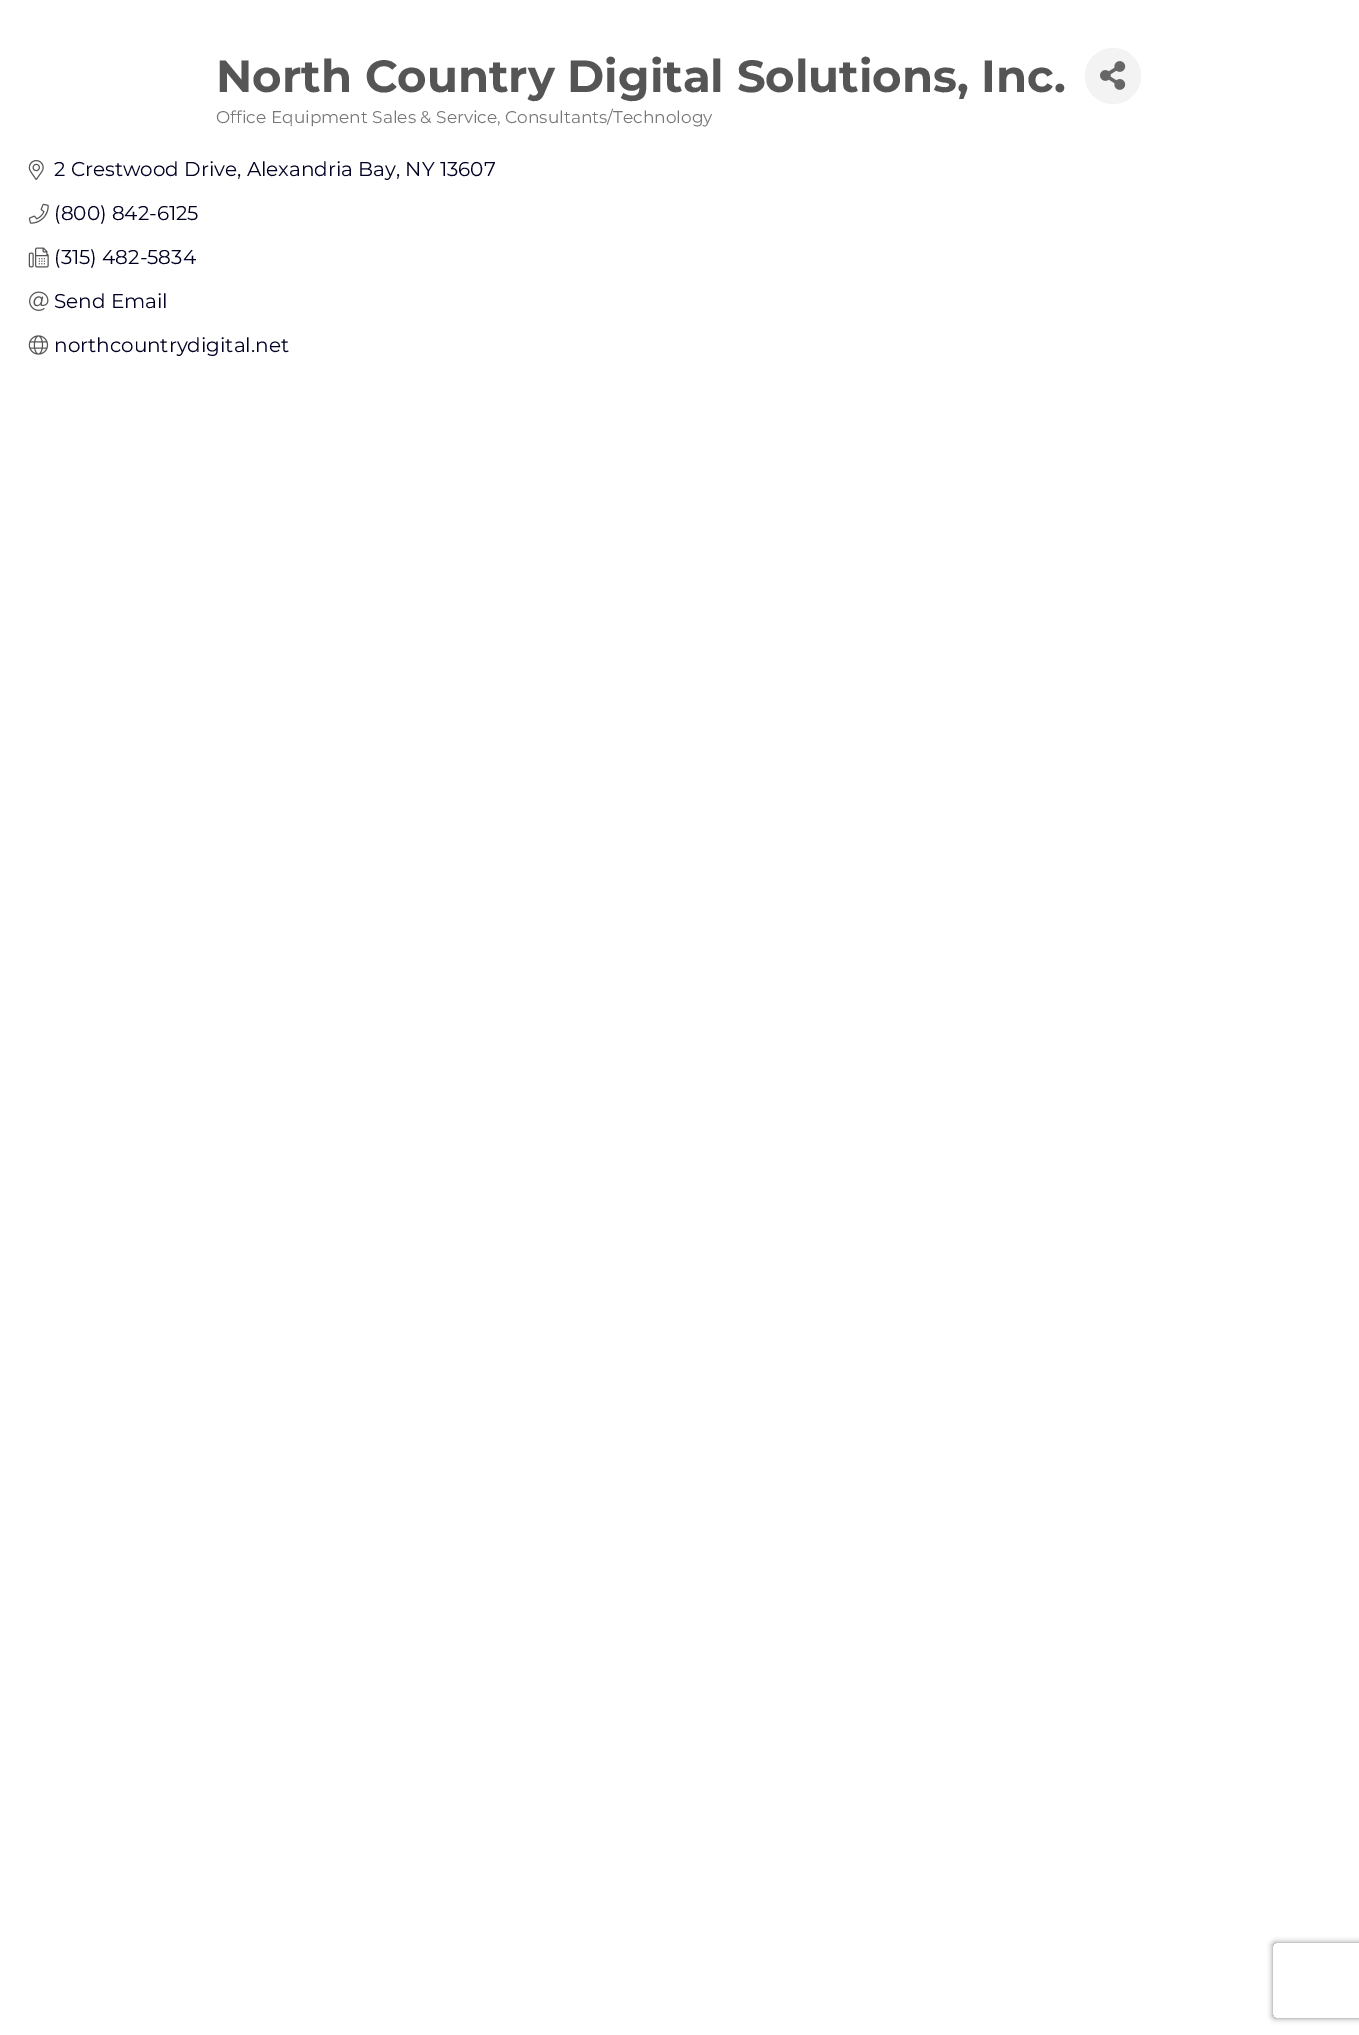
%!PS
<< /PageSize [1359 2035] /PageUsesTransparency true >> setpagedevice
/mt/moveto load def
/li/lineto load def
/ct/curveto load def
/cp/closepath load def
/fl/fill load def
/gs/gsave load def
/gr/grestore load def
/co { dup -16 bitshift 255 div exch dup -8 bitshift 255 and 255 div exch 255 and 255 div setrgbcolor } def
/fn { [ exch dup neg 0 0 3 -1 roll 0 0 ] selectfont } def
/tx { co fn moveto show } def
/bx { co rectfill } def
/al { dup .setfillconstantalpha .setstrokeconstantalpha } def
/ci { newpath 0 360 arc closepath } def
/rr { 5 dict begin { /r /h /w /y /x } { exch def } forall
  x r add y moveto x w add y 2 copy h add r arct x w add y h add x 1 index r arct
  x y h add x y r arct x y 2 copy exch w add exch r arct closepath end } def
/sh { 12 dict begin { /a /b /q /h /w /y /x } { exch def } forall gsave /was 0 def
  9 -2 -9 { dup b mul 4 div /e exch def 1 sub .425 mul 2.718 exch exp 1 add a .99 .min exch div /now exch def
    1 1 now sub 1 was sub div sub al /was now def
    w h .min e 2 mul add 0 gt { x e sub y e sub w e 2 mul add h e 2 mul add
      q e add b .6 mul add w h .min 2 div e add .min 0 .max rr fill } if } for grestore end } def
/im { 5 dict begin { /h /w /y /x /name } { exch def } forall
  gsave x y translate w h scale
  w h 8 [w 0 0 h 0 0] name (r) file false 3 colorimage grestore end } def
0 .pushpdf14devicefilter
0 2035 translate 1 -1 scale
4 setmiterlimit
0 0 1359 2035 16#FFFFFF bx
16#F3F3F3 co
1113 76 28 ci fl
(media/1.raw) 1100 61 26 29 im
(media/2.raw) 28 160 16 20 im
(media/3.raw) 28 203 21 21 im
(media/4.raw) 28 247 21 21 im
(media/5.raw) 29 291 20 20 im
(media/6.raw) 28 335 21 20 im
gs
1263 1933 mt 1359 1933 li 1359 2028 li 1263 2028 li cp 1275.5 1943 mt 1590.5 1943 li 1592 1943 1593 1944 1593 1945.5 ct 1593 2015.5 li 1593 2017 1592 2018 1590.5 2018 ct 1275.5 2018 li 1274 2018 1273 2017 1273 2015.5 ct 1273 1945.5 li 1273 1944 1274 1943 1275.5 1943 ct cp eoclip newpath
16#808080 co
1273 1943 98 75 2.5 3 1 sh
gr
(North Country Digital Solutions, Inc.) 216 92 /Montserrat-Bold 45 16#555555 tx
(Office Equipment Sales & Service, Consultants/Technology) 216 123 /Montserrat-Regular 17 16#777777 tx
(2 Crestwood Drive, Alexandria Bay, NY 13607) 54 176 /Montserrat-Regular 20 16#000022 tx
(\(800\) 842-6125) 54 220 /Montserrat-Regular 20 16#000022 tx
(\(315\) 482-5834) 54 264 /Montserrat-Regular 20 16#000022 tx
(Send Email) 54 308 /Montserrat-Regular 20 16#000022 tx
(northcountrydigital.net) 54 352 /Montserrat-Regular 20 16#000022 tx
.poppdf14devicefilter showpage
